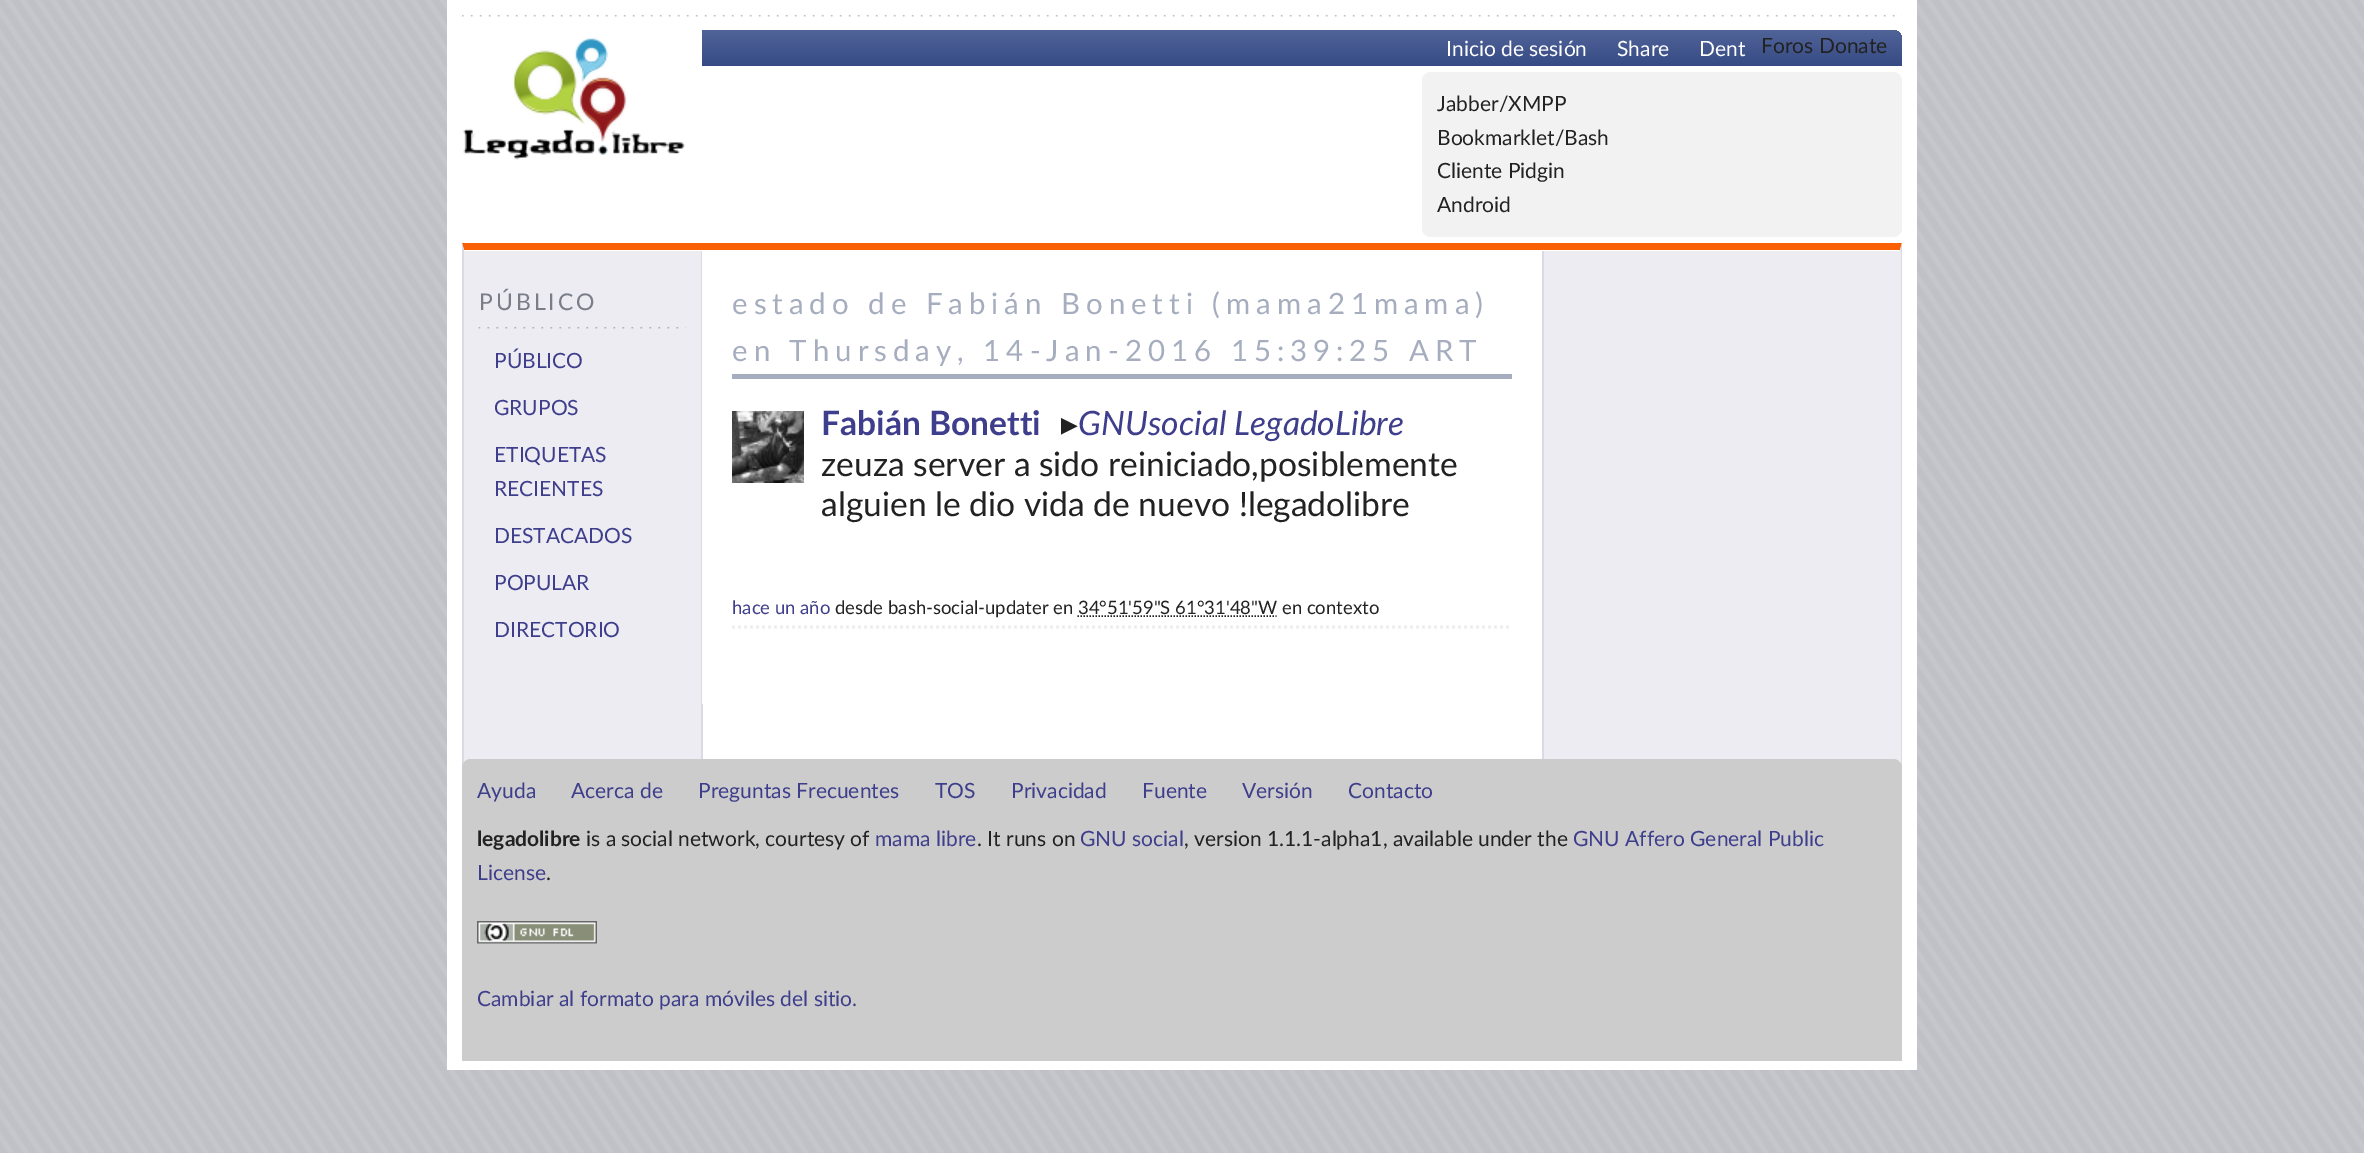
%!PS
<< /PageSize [2364 1153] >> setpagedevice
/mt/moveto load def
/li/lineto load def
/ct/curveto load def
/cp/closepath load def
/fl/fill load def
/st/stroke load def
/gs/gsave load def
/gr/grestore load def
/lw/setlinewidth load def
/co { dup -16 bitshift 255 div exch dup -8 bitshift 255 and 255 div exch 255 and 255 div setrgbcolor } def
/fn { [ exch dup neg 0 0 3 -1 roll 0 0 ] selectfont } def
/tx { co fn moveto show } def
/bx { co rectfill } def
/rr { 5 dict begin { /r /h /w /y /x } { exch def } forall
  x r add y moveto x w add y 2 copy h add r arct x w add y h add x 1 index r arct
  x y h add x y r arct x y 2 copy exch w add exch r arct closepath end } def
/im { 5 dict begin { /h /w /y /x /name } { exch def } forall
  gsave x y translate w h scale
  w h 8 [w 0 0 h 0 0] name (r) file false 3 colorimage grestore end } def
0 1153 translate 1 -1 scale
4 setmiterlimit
0 0 2364 1153 16#FFFFFF bx
(media/1.raw) 0 0 2364 1153 im
447 0 1470 1070 16#FFFFFF bx
(media/2.raw) 462 15 1440 2 im
(media/3.raw) 463 37 222 123 im
gs 702 30 mt 1893 30 li 1898 30 1902 34 1902 39 ct 1902 66 li 702 66 li cp clip newpath
<< /ShadingType 2 /ColorSpace /DeviceRGB /Coords [1302 30 1302 66] /Extend [true true] /Function << /FunctionType 2 /Domain [0 1] /C0 [.318 .392 .6] /C1 [.212 .29 .518] /N 1 >> >> shfill gr
16#F2F2F2 co
1422 72 480 165 9 rr fl
16#FB6104 co
462 243 mt 1902 243 li 1900 250 li 464 250 li cp fl
16#D8DAE6 co
1902 243 mt 1902 768 li 1900 768 li 1900 250 li cp fl
462 768 mt 462 243 li 464 250 li 464 768 li cp fl
1544 251 357 513 16#ECECF2 bx
1542 251 2 508 16#D8DAE6 bx
464 251 237 512 16#ECECF2 bx
701 251 2 508 16#D8DAE6 bx
(media/4.raw) 478 327 208 2 im
702 251 1 453 16#FFFFFF bx
732 374 780 5 16#A6ADBF bx
16#EEEEEE co
3 lw
[3 3] 0 setdash
732 627 mt 1512 627 li st
(media/5.raw) 732 411 72 72 im
16#222222 co
1.5 lw
[1.5 1.5] 0 setdash
1077.5 616 mt 1276.5 616 li st
16#CCCCCC co
471 759 mt 1893 759 li 1898 759 1902 763 1902 768 ct 1902 1061 li 462 1061 li 462 768 li 462 763 466 759 471 759 ct cp fl
(media/6.raw) 477 921 120 23 im
(Inicio de sesión) 1446 56 /Lato-Regular 21 16#FFFFFF tx
(Share) 1617 56 /Lato-Regular 21 16#FFFFFF tx
(Dent) 1699 56 /Lato-Regular 21 16#FFFFFF tx
(Foros Donate) 1761 53 /Lato-Regular 21 16#222222 tx
(Jabber/XMPP) 1437 111 /Lato-Regular 21 16#222222 tx
(Bookmarklet/Bash) 1437 145 /Lato-Regular 21 16#222222 tx
(Cliente Pidgin) 1437 178 /Lato-Regular 21 16#222222 tx
(Android) 1437 212 /Lato-Regular 21 16#222222 tx
/Lato-Regular 23 fn
16#7A7C87 co
479 310 mt 3 0 (PÚBLICO) ashow
(PÚBLICO) 494 368 /Lato-Regular 21 16#3E3E8C tx
(GRUPOS) 494 415 /Lato-Regular 21 16#3E3E8C tx
(ETIQUETAS) 494 462 /Lato-Regular 21 16#3E3E8C tx
(RECIENTES) 494 496 /Lato-Regular 21 16#3E3E8C tx
(DESTACADOS) 494 543 /Lato-Regular 21 16#3E3E8C tx
(POPULAR) 494 590 /Lato-Regular 21 16#3E3E8C tx
(DIRECTORIO) 494 637 /Lato-Regular 21 16#3E3E8C tx
/Lato-Regular 29.4 fn
16#A6ADBF co
732 314 mt 6 0 (estado de Fabián Bonetti \(mama21mama\)) ashow
732 361 mt 6 0 (en Thursday, 14-Jan-2016 15:39:25 ART) ashow
(Fabián Bonetti) 821 435 /Lato-Bold 33.6 16#3E3E8C tx
(▸) 1061 435 /DejaVuSans-Regular 33.6 16#222222 tx
(GNUsocial LegadoLibre) 1078 435 /Lato-Italic 33.6 16#3E3E8C tx
(zeuza server a sido reiniciado,posiblemente) 821 476 /Lato-Regular 33.6 16#222222 tx
(alguien le dio vida de nuevo !legadolibre) 821 516 /Lato-Regular 33.6 16#222222 tx
(hace un año) 732 614 /Lato-Regular 18.5 16#3E3E8C tx
(desde bash-social-updater en 34°51'59"S 61°31'48"W en contexto) 835 614 /Lato-Regular 18.5 16#222222 tx
(Ayuda) 477 798 /Lato-Regular 21 16#3E3E8C tx
(Acerca de) 571 798 /Lato-Regular 21 16#3E3E8C tx
(Preguntas Frecuentes) 698 798 /Lato-Regular 21 16#3E3E8C tx
(TOS) 935 798 /Lato-Regular 21 16#3E3E8C tx
(Privacidad) 1011 798 /Lato-Regular 21 16#3E3E8C tx
(Fuente) 1142 798 /Lato-Regular 21 16#3E3E8C tx
(Versión) 1242 798 /Lato-Regular 21 16#3E3E8C tx
(Contacto) 1348 798 /Lato-Regular 21 16#3E3E8C tx
(legadolibre) 477 846 /Lato-Bold 21 16#222222 tx
(is a social network, courtesy of) 586 846 /Lato-Regular 21 16#222222 tx
(mama libre) 875 846 /Lato-Regular 21 16#3E3E8C tx
(. It runs on) 977 846 /Lato-Regular 21 16#222222 tx
(GNU social) 1080 846 /Lato-Regular 21 16#3E3E8C tx
(, version 1.1.1-alpha1, available under the) 1184 846 /Lato-Regular 21 16#222222 tx
(GNU Affero General Public) 1573 846 /Lato-Regular 21 16#3E3E8C tx
(License) 477 880 /Lato-Regular 21 16#3E3E8C tx
(.) 546 880 /Lato-Regular 21 16#222222 tx
(Cambiar al formato para móviles del sitio.) 477 1006 /Lato-Regular 21 16#3E3E8C tx
showpage
